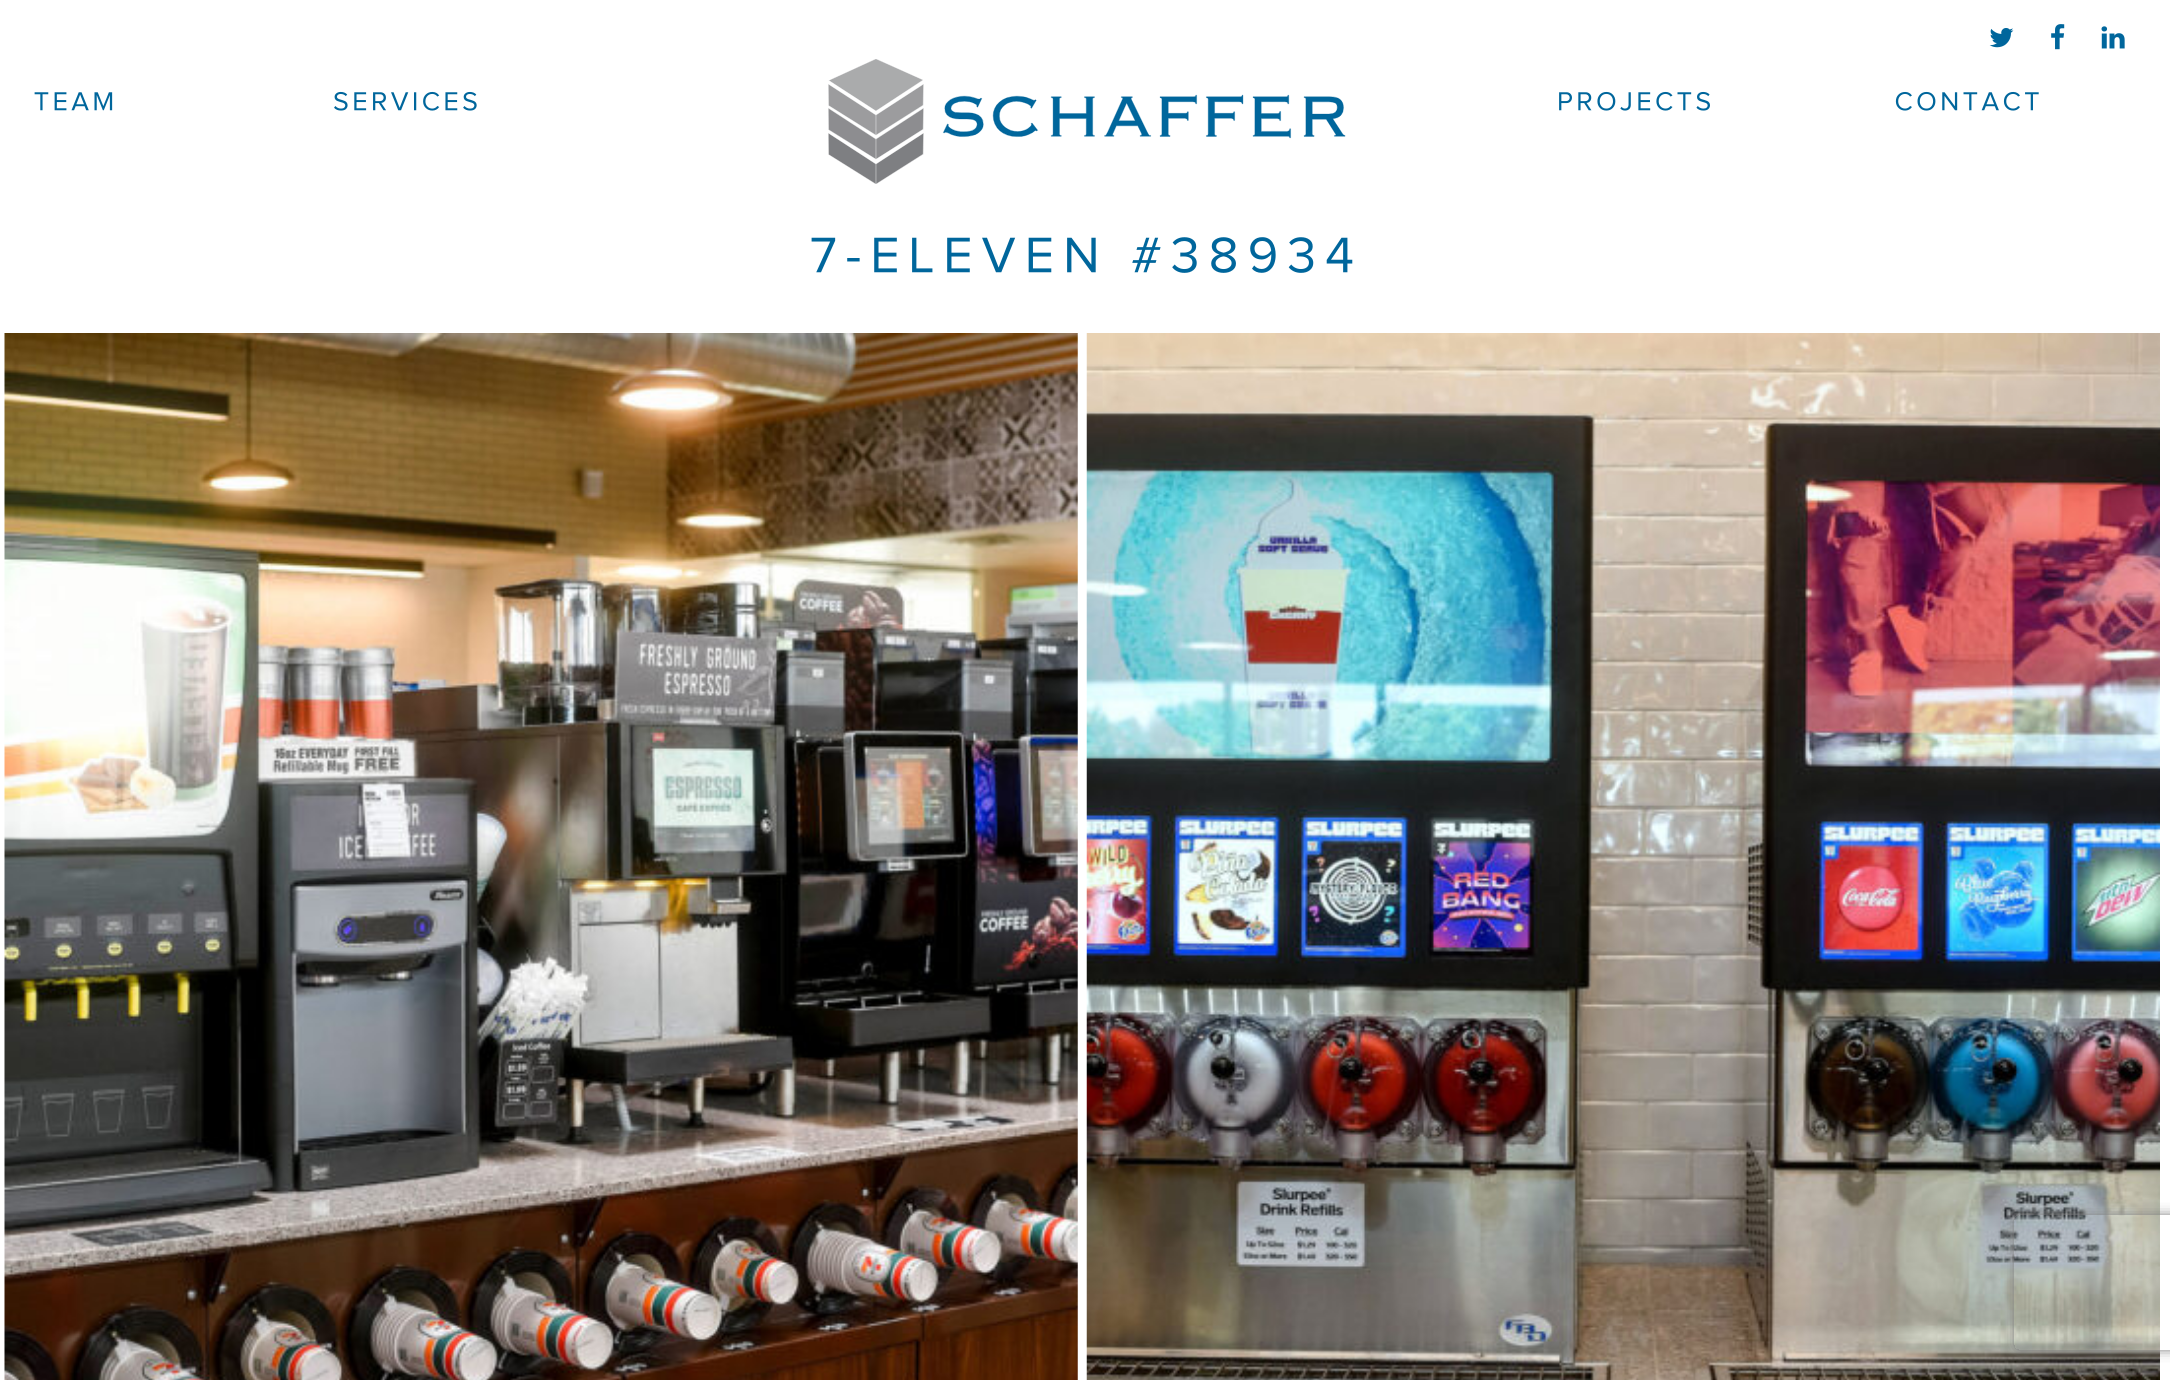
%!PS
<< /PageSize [2170 1380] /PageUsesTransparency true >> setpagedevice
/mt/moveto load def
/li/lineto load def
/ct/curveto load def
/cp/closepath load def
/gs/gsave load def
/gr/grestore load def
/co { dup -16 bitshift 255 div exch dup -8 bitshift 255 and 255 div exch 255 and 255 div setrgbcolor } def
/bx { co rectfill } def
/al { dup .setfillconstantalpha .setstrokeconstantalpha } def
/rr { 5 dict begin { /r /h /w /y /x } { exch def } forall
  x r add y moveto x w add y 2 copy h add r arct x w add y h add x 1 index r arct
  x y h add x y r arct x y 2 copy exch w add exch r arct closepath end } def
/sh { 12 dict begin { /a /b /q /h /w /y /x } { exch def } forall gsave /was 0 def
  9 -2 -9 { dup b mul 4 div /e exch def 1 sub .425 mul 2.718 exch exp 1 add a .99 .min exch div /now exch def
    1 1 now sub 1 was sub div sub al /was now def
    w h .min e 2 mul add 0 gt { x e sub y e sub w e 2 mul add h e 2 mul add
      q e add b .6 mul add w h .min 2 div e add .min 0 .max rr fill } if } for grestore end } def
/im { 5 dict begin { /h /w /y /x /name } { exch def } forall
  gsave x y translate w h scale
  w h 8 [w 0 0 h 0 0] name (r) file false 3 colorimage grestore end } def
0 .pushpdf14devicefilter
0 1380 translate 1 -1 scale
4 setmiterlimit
0 0 2170 1380 16#FFFFFF bx
(media/1.raw) 1989 28 25 20 im
(media/2.raw) 2051 24 14 26 im
(media/3.raw) 2101 26 24 23 im
(media/4.raw) 828 59 518 125 im
(media/5.raw) 34 92 79 19 im
(media/6.raw) 334 91 143 20 im
(media/7.raw) 1559 91 151 20 im
(media/8.raw) 1895 91 144 20 im
(media/9.raw) 811 237 542 36 im
(media/10.raw) 4 333 1074 1047 im
(media/11.raw) 1086 333 1074 1047 im
gs
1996 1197 mt 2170 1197 li 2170 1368 li 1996 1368 li cp 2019 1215 mt 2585 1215 li 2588 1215 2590 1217 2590 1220 ct 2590 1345 li 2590 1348 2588 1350 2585 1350 ct 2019 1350 li 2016 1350 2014 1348 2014 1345 ct 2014 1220 li 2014 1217 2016 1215 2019 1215 ct cp eoclip newpath
16#808080 co
2014 1215 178 135 5 5.5 1 sh
gr
.poppdf14devicefilter showpage
